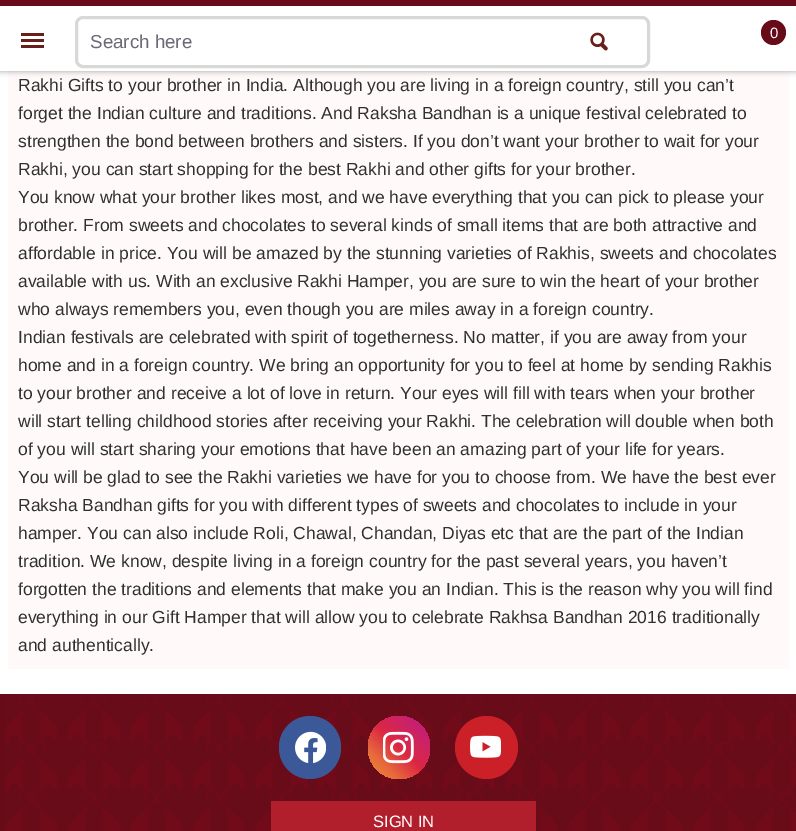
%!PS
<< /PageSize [796 831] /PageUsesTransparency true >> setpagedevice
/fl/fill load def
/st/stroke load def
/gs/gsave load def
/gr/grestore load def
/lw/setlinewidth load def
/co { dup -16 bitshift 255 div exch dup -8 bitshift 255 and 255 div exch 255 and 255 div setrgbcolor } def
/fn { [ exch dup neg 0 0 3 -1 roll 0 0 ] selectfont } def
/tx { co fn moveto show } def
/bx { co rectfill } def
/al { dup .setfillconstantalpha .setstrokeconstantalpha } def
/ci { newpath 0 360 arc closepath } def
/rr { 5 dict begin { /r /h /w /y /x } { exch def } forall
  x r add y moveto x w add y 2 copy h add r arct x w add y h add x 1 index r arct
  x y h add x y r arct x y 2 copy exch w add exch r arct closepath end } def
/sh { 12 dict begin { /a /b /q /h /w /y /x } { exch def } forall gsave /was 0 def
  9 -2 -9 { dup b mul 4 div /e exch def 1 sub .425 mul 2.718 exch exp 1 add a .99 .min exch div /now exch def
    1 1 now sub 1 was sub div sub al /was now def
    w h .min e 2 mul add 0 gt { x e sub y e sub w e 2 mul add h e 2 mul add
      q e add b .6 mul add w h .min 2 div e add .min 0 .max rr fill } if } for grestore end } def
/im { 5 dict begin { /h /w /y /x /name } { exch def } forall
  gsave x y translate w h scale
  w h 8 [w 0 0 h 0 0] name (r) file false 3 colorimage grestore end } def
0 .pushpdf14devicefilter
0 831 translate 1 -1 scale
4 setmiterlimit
0 0 796 831 16#FFFFFF bx
8 71 781 598 16#FFF9FA bx
16#000000 co
0 0 796 71 0 3 .35 sh
0 6 796 65 16#FFFFFF bx
0 0 796 6 16#670B19 bx
21 45 23 3 16#681E19 bx
21 39 23 3 16#681E19 bx
21 33 23 3 16#681E19 bx
16#D8D8D8 co
3 lw
76.5 17.5 572 49 6.5 rr st
(media/1.raw) 590 32 18 19 im
16#670B19 co
773.5 32.5 12.5 ci fl
0 694 5 137 16#670B19 bx
(media/2.raw) 5 694 791 137 im
16#3B5998 co
279 716 62 63 31 rr fl
(media/3.raw) 295 731 31 33 im
gs 368 716 62 63 31 rr clip newpath
<< /ShadingType 2 /ColorSpace /DeviceRGB /Coords [368 779 430 716] /Extend [true true] /Function << /FunctionType 3 /Domain [0 1] /Functions [<< /FunctionType 2 /Domain [0 1] /C0 [.941 .58 .2] /C1 [.902 .408 .235] /N 1 >> << /FunctionType 2 /Domain [0 1] /C0 [.902 .408 .235] /C1 [.863 .153 .263] /N 1 >> << /FunctionType 2 /Domain [0 1] /C0 [.863 .153 .263] /C1 [.8 .137 .4] /N 1 >> << /FunctionType 2 /Domain [0 1] /C0 [.8 .137 .4] /C1 [.737 .094 .533] /N 1 >>] /Bounds [.25 .5 .75] /Encode [0 1 0 1 0 1 0 1] >> >> shfill gr
(media/4.raw) 383 731 31 33 im
16#CB2027 co
486.5 747.5 31.5 ci fl
(media/5.raw) 470 735 31 23 im
271 801 265 30 16#B11F2D bx
(Search here) 90 48 /LiberationSans-Regular 18.75 16#6E6978 tx
(0) 770 38 /LiberationSans-Regular 15 16#FFFFFF tx
(Rakhi Gifts to your brother in India. Although you are living in a foreign country, still you can’t) 18 91 /LiberationSans-Regular 17.5 16#303030 tx
(forget the Indian culture and traditions. And Raksha Bandhan is a unique festival celebrated to) 18 119 /LiberationSans-Regular 17.5 16#303030 tx
(strengthen the bond between brothers and sisters. If you don’t want your brother to wait for your) 18 147 /LiberationSans-Regular 17.5 16#303030 tx
(Rakhi, you can start shopping for the best Rakhi and other gifts for your brother.) 18 175 /LiberationSans-Regular 17.5 16#303030 tx
(You know what your brother likes most, and we have everything that you can pick to please your) 18 203 /LiberationSans-Regular 17.5 16#303030 tx
(brother. From sweets and chocolates to several kinds of small items that are both attractive and) 18 231 /LiberationSans-Regular 17.5 16#303030 tx
(affordable in price. You will be amazed by the stunning varieties of Rakhis, sweets and chocolates) 18 259 /LiberationSans-Regular 17.5 16#303030 tx
(available with us. With an exclusive Rakhi Hamper, you are sure to win the heart of your brother) 18 287 /LiberationSans-Regular 17.5 16#303030 tx
(who always remembers you, even though you are miles away in a foreign country.) 18 315 /LiberationSans-Regular 17.5 16#303030 tx
(Indian festivals are celebrated with spirit of togetherness. No matter, if you are away from your) 18 343 /LiberationSans-Regular 17.5 16#303030 tx
(home and in a foreign country. We bring an opportunity for you to feel at home by sending Rakhis) 18 371 /LiberationSans-Regular 17.5 16#303030 tx
(to your brother and receive a lot of love in return. Your eyes will fill with tears when your brother) 18 399 /LiberationSans-Regular 17.5 16#303030 tx
(will start telling childhood stories after receiving your Rakhi. The celebration will double when both) 18 427 /LiberationSans-Regular 17.5 16#303030 tx
(of you will start sharing your emotions that have been an amazing part of your life for years.) 18 455 /LiberationSans-Regular 17.5 16#303030 tx
(You will be glad to see the Rakhi varieties we have for you to choose from. We have the best ever) 18 483 /LiberationSans-Regular 17.5 16#303030 tx
(Raksha Bandhan gifts for you with different types of sweets and chocolates to include in your) 18 511 /LiberationSans-Regular 17.5 16#303030 tx
(hamper. You can also include Roli, Chawal, Chandan, Diyas etc that are the part of the Indian) 18 539 /LiberationSans-Regular 17.5 16#303030 tx
(tradition. We know, despite living in a foreign country for the past several years, you haven’t) 18 567 /LiberationSans-Regular 17.5 16#303030 tx
(forgotten the traditions and elements that make you an Indian. This is the reason why you will find) 18 595 /LiberationSans-Regular 17.5 16#303030 tx
(everything in our Gift Hamper that will allow you to celebrate Rakhsa Bandhan 2016 traditionally) 18 623 /LiberationSans-Regular 17.5 16#303030 tx
(and authentically.) 18 651 /LiberationSans-Regular 17.5 16#303030 tx
(SIGN IN) 373 827 /LiberationSans-Regular 16.5 16#FFFFFF tx
.poppdf14devicefilter showpage
